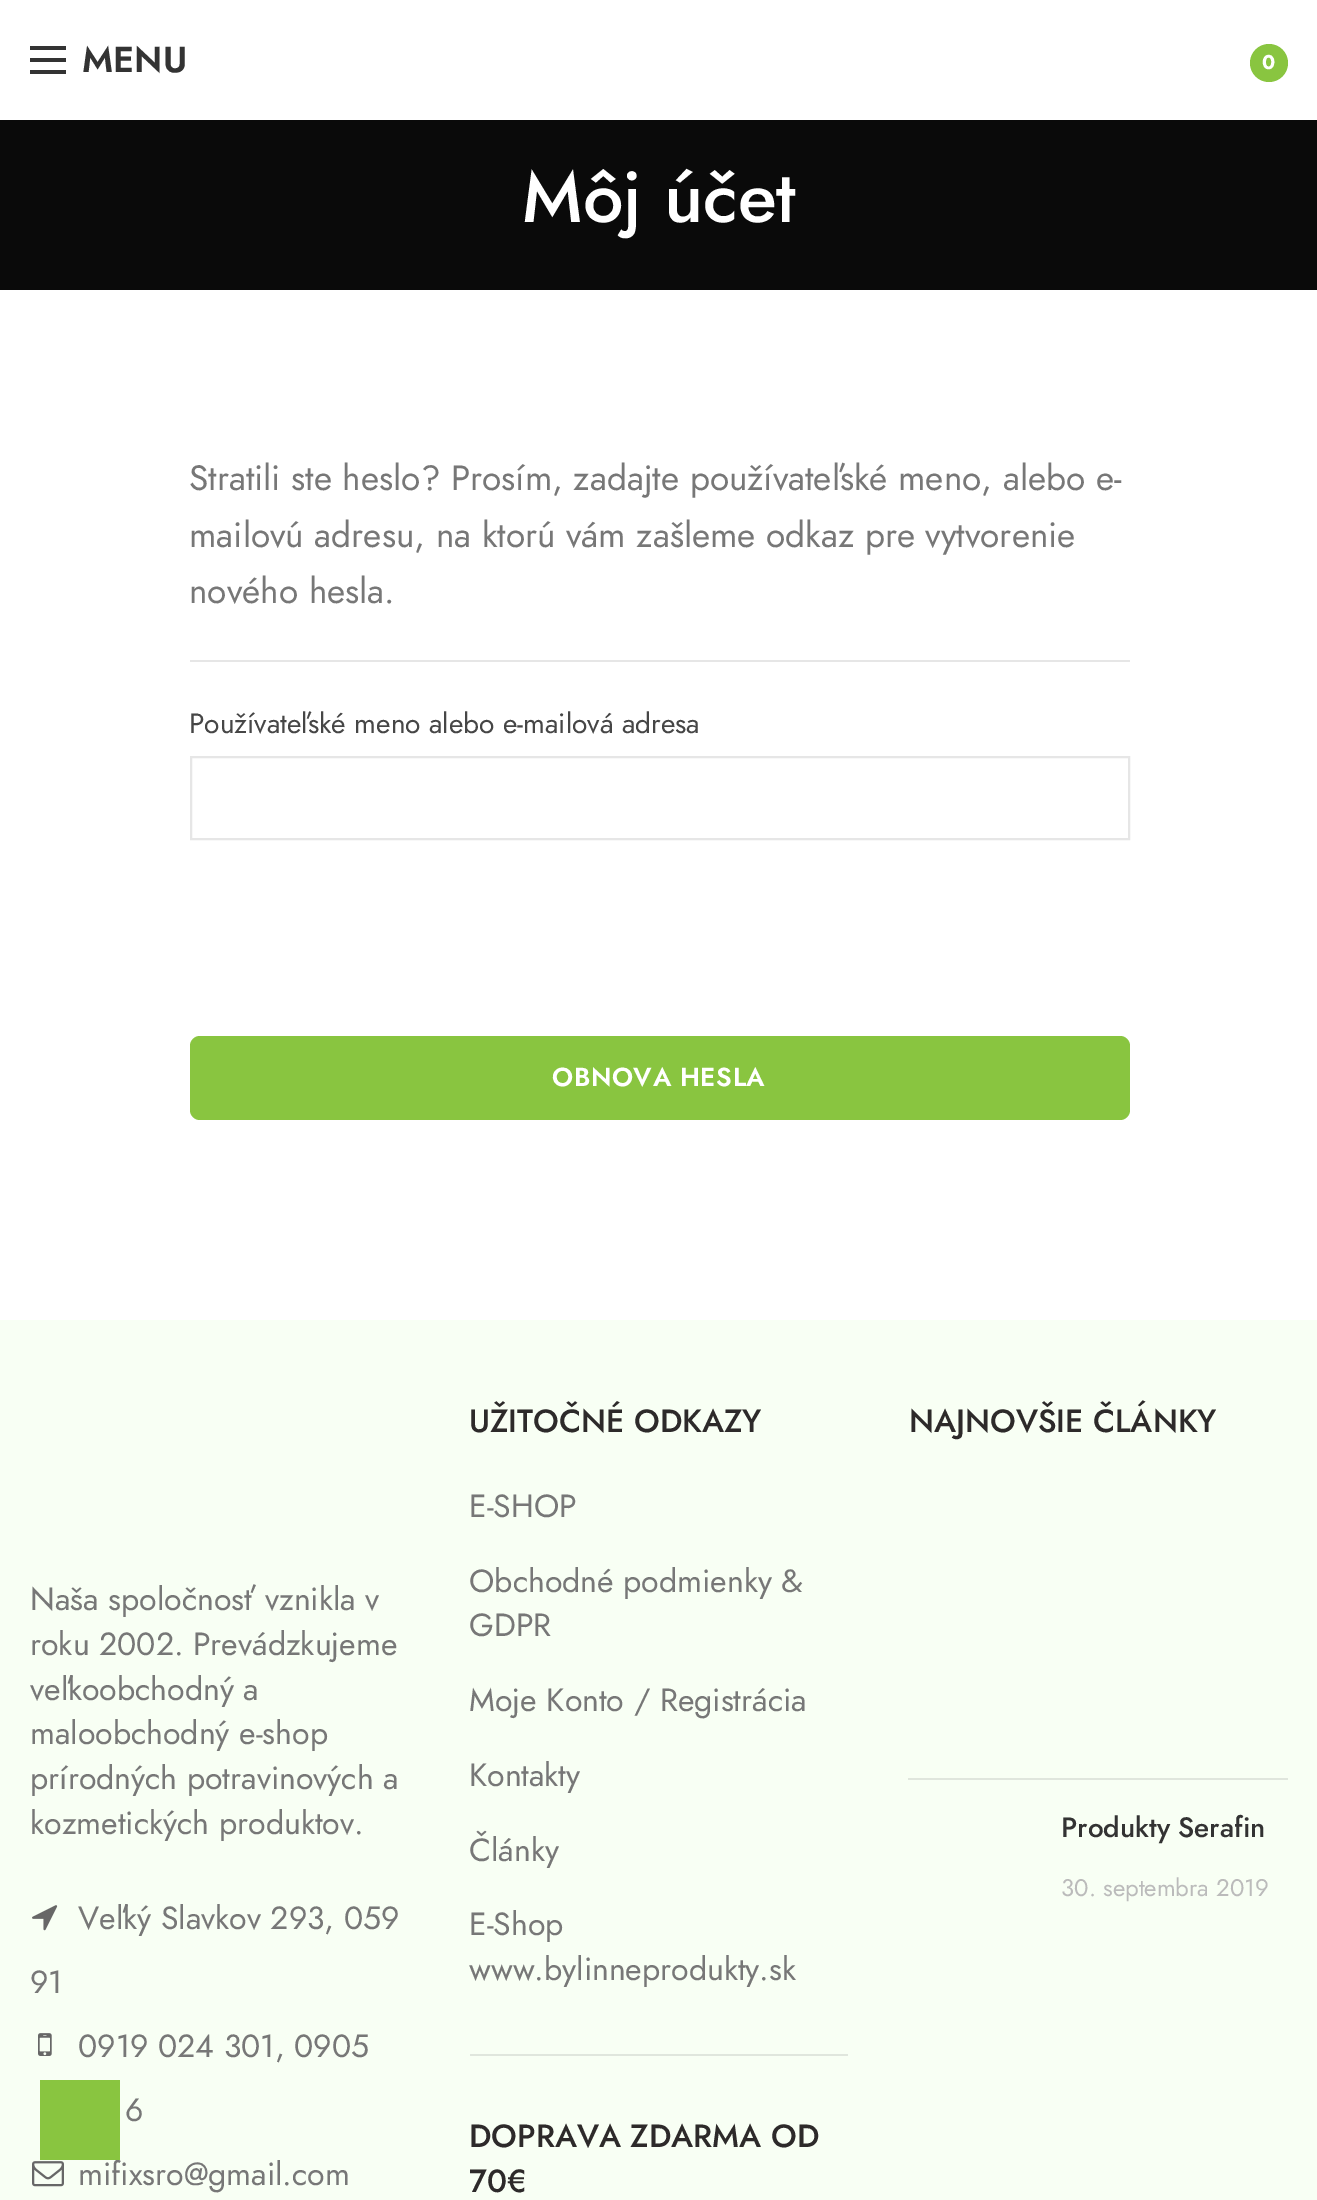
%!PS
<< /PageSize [1317 2200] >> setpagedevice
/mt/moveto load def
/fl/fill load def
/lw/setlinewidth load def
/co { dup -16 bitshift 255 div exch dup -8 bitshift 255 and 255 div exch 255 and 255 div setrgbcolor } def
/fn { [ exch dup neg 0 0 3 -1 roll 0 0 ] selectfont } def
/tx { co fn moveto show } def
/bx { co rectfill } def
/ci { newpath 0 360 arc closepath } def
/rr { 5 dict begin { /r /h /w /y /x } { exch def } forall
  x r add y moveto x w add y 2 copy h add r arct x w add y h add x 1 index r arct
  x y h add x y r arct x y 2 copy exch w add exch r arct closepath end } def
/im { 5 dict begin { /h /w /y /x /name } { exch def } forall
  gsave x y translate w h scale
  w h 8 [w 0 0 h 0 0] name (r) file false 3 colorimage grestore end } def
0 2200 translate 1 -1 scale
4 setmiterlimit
0 0 1317 2200 16#FFFFFF bx
30 58 36 4 16#333333 bx
30 46 36 4 16#333333 bx
30 70 36 4 16#333333 bx
16#89C540 co
1269 63 19 ci fl
0 120 1317 170 16#0A0A0A bx
190 660 940 2 16#E6E6E6 bx
2 lw
191 757 938 82 rectstroke
16#89C540 co
190 1036 940 84 10 rr fl
0 1320 1317 880 16#F8FFF4 bx
(media/1.raw) 32 1905 26 26 im
(media/2.raw) 38 2033 14 23 im
(media/3.raw) 32 2161 32 26 im
470 2054 378 2 16#E0E6DD bx
908 1778 380 2 16#E0E6DD bx
(MENU) 82 72 /Jost-SemiBold 36 16#333333 tx
(0) 1262 69 /Jost-Bold 20 16#FFFFFF tx
(Môj účet) 522 222 /Jost-Medium 72 16#FFFFFF tx
(Stratili ste heslo? Prosím, zadajte používateľské meno, alebo e-) 189 490 /Jost-Regular 35.2 16#777777 tx
(mailovú adresu, na ktorú vám zašleme odkaz pre vytvorenie) 189 547 /Jost-Regular 35.2 16#777777 tx
(nového hesla.) 189 603 /Jost-Regular 35.2 16#777777 tx
(Používateľské meno alebo e-mailová adresa) 189 733 /Jost-Regular 28 16#464646 tx
/Jost-SemiBold 26 fn
16#FFFFFF co
552 1086 mt .6 0 (OBNOVA HESLA) ashow
(Naša spoločnosť vznikla v) 30 1610 /Jost-Regular 32 16#777777 tx
(roku 2002. Prevádzkujeme) 30 1655 /Jost-Regular 32 16#777777 tx
(veľkoobchodný a) 30 1700 /Jost-Regular 32 16#777777 tx
(maloobchodný e-shop) 30 1744 /Jost-Regular 32 16#777777 tx
(prírodných potravinových a) 30 1789 /Jost-Regular 32 16#777777 tx
(kozmetických produktov.) 30 1834 /Jost-Regular 32 16#777777 tx
(Veľký Slavkov 293, 059) 78 1929 /Jost-Regular 32 16#777777 tx
(91) 30 1993 /Jost-Regular 32 16#777777 tx
(0919 024 301, 0905) 78 2057 /Jost-Regular 32 16#777777 tx
(6) 125 2121 /Jost-Regular 32 16#777777 tx
(mifixsro@gmail.com) 78 2185 /Jost-Regular 32 16#777777 tx
(UŽITOČNÉ ODKAZY) 469 1432 /Jost-Medium 32 16#2D2A2A tx
(E-SHOP) 469 1517 /Jost-Regular 32 16#777777 tx
(Obchodné podmienky &) 469 1592 /Jost-Regular 32 16#777777 tx
(GDPR) 469 1636 /Jost-Regular 32 16#777777 tx
(Moje Konto / Registrácia) 469 1711 /Jost-Regular 32 16#777777 tx
(Kontakty) 469 1786 /Jost-Regular 32 16#777777 tx
(Články) 469 1861 /Jost-Regular 32 16#777777 tx
(E-Shop) 469 1935 /Jost-Regular 32 16#777777 tx
(www.bylinneprodukty.sk) 469 1980 /Jost-Regular 32 16#777777 tx
(DOPRAVA ZDARMA OD) 469 2147 /Jost-Medium 32 16#2D2A2A tx
(70€) 469 2192 /Jost-Medium 32 16#2D2A2A tx
(NAJNOVŠIE ČLÁNKY) 909 1432 /Jost-Medium 32 16#2D2A2A tx
(Produkty Serafin) 1061 1837 /Jost-Medium 28 16#333333 tx
(30. septembra 2019) 1061 1896 /Jost-Regular 24 16#BBBBBB tx
40 2080 80 80 16#89C540 bx
showpage
